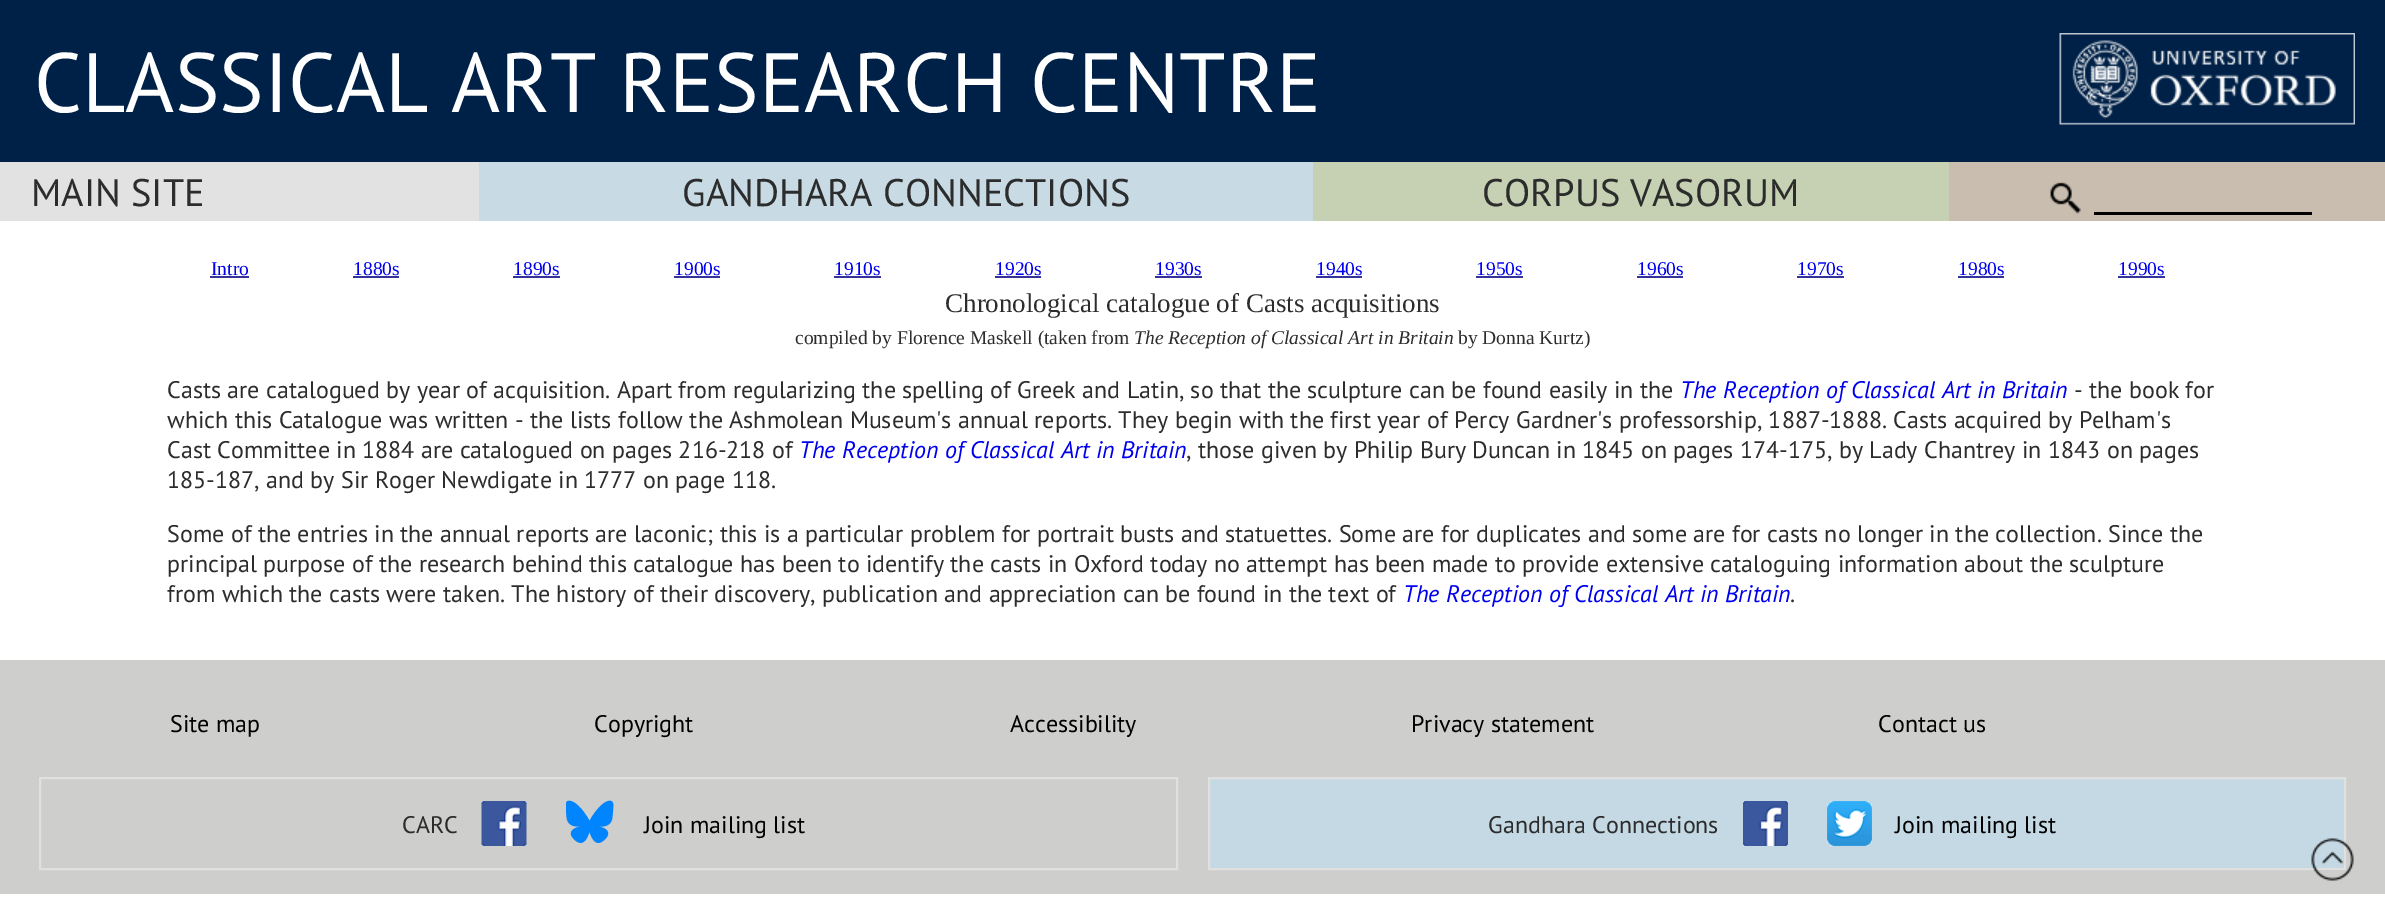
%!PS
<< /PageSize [2385 918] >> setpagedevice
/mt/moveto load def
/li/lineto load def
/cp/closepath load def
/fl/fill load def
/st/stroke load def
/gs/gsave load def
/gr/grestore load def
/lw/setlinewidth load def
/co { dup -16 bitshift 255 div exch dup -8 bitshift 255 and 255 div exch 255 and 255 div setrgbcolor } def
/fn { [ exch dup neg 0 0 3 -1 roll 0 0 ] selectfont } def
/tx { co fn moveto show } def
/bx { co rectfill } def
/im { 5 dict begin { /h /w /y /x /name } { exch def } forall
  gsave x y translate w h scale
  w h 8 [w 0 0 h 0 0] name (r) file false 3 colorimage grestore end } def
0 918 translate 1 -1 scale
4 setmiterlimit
0 0 2385 918 16#FFFFFF bx
0 0 2385 162 16#002147 bx
(media/1.raw) 2059 33 296 92 im
0 162 479 59 16#E2E2E2 bx
479 162 834 59 16#C8DBE5 bx
1313 162 636 59 16#C5D1B2 bx
1949 162 436 59 16#C8BDAE bx
(media/2.raw) 2050 182 31 32 im
2094 212 218 3 16#000000 bx
210 276 39 2 16#333399 bx
353 276 46 2 16#333399 bx
513 276 47 2 16#333399 bx
674 276 46 2 16#333399 bx
834 276 47 2 16#333399 bx
995 276 46 2 16#333399 bx
1155 276 47 2 16#333399 bx
1316 276 46 2 16#333399 bx
1476 276 47 2 16#333399 bx
1637 276 46 2 16#333399 bx
1797 276 47 2 16#333399 bx
1958 276 46 2 16#333399 bx
2118 276 47 2 16#333399 bx
0 660 2385 234 16#CECECC bx
16#E0E0E0 co
2 lw
40 778 1137 91 rectstroke
(media/3.raw) 481 801 46 45 im
(media/4.raw) 566 800 48 43 im
16#C5D9E4 co
1209 778 mt 2345 778 li 2345 869 li 1209 869 li cp gs fl gr
16#E0E0E0 co
st
(media/5.raw) 1743 801 45 45 im
(media/6.raw) 1827 801 45 45 im
(media/7.raw) 2311 838 43 43 im
(CLASSICAL ART RESEARCH CENTRE) 34 112 /PTSans-Regular 84 16#FFFFFF tx
(MAIN SITE) 31 206 /PTSans-Regular 38.4 16#2C2C2C tx
(GANDHARA CONNECTIONS) 682 206 /PTSans-Regular 38.4 16#2C2C2C tx
(CORPUS VASORUM) 1482 206 /PTSans-Regular 38.4 16#2C2C2C tx
(Intro) 211 275 /LiberationSerif-Regular 19.5 16#0000EE tx
(1880s) 353 275 /LiberationSerif-Regular 19.5 16#0000EE tx
(1890s) 513 275 /LiberationSerif-Regular 19.5 16#0000EE tx
(1900s) 674 275 /LiberationSerif-Regular 19.5 16#0000EE tx
(1910s) 834 275 /LiberationSerif-Regular 19.5 16#0000EE tx
(1920s) 995 275 /LiberationSerif-Regular 19.5 16#0000EE tx
(1930s) 1155 275 /LiberationSerif-Regular 19.5 16#0000EE tx
(1940s) 1316 275 /LiberationSerif-Regular 19.5 16#0000EE tx
(1950s) 1476 275 /LiberationSerif-Regular 19.5 16#0000EE tx
(1960s) 1637 275 /LiberationSerif-Regular 19.5 16#0000EE tx
(1970s) 1797 275 /LiberationSerif-Regular 19.5 16#0000EE tx
(1980s) 1958 275 /LiberationSerif-Regular 19.5 16#0000EE tx
(1990s) 2118 275 /LiberationSerif-Regular 19.5 16#0000EE tx
(Chronological catalogue of Casts acquisitions) 945 312 /LiberationSerif-Regular 27 16#2C2C2C tx
(compiled by Florence Maskell \(taken from) 795 344 /LiberationSerif-Regular 19.5 16#2C2C2C tx
(The Reception of Classical Art in Britain) 1134 344 /LiberationSerif-Italic 19.5 16#2C2C2C tx
(by Donna Kurtz\)) 1458 344 /LiberationSerif-Regular 19.5 16#2C2C2C tx
(Casts are catalogued by year of acquisition. Apart from regularizing the spelling of Greek and Latin, so that the sculpture can be found easily in the) 167 398 /PTSans-Regular 24 16#2C2C2C tx
(The Reception of Classical Art in Britain) 1680 398 /PTSans-Italic 24 16#0000EE tx
(- the book for) 2074 398 /PTSans-Regular 24 16#2C2C2C tx
(which this Catalogue was written - the lists follow the Ashmolean Museum's annual reports. They begin with the first year of Percy Gardner's professorship, 1887-1888. Casts acquired by Pelham's) 167 428 /PTSans-Regular 24 16#2C2C2C tx
(Cast Committee in 1884 are catalogued on pages 216-218 of) 167 458 /PTSans-Regular 24 16#2C2C2C tx
(The Reception of Classical Art in Britain) 799 458 /PTSans-Italic 24 16#0000EE tx
(, those given by Philip Bury Duncan in 1845 on pages 174-175, by Lady Chantrey in 1843 on pages) 1186 458 /PTSans-Regular 24 16#2C2C2C tx
(185-187, and by Sir Roger Newdigate in 1777 on page 118.) 167 488 /PTSans-Regular 24 16#2C2C2C tx
(Some of the entries in the annual reports are laconic; this is a particular problem for portrait busts and statuettes. Some are for duplicates and some are for casts no longer in the collection. Since the) 167 542 /PTSans-Regular 24 16#2C2C2C tx
(principal purpose of the research behind this catalogue has been to identify the casts in Oxford today no attempt has been made to provide extensive cataloguing information about the sculpture) 167 572 /PTSans-Regular 24 16#2C2C2C tx
(from which the casts were taken. The history of their discovery, publication and appreciation can be found in the text of) 167 602 /PTSans-Regular 24 16#2C2C2C tx
(The Reception of Classical Art in Britain) 1403 602 /PTSans-Italic 24 16#0000EE tx
(.) 1790 602 /PTSans-Regular 24 16#2C2C2C tx
(Site map) 170 732 /PTSans-Regular 24 16#000000 tx
(Copyright) 594 732 /PTSans-Regular 24 16#000000 tx
(Accessibility) 1010 732 /PTSans-Regular 24 16#000000 tx
(Privacy statement) 1411 732 /PTSans-Regular 24 16#000000 tx
(Contact us) 1878 732 /PTSans-Regular 24 16#000000 tx
(CARC) 402 833 /PTSans-Regular 24 16#2C2C2C tx
(Join mailing list) 644 833 /PTSans-Regular 24 16#000000 tx
(Gandhara Connections) 1488 833 /PTSans-Regular 24 16#2C2C2C tx
(Join mailing list) 1895 833 /PTSans-Regular 24 16#000000 tx
showpage
